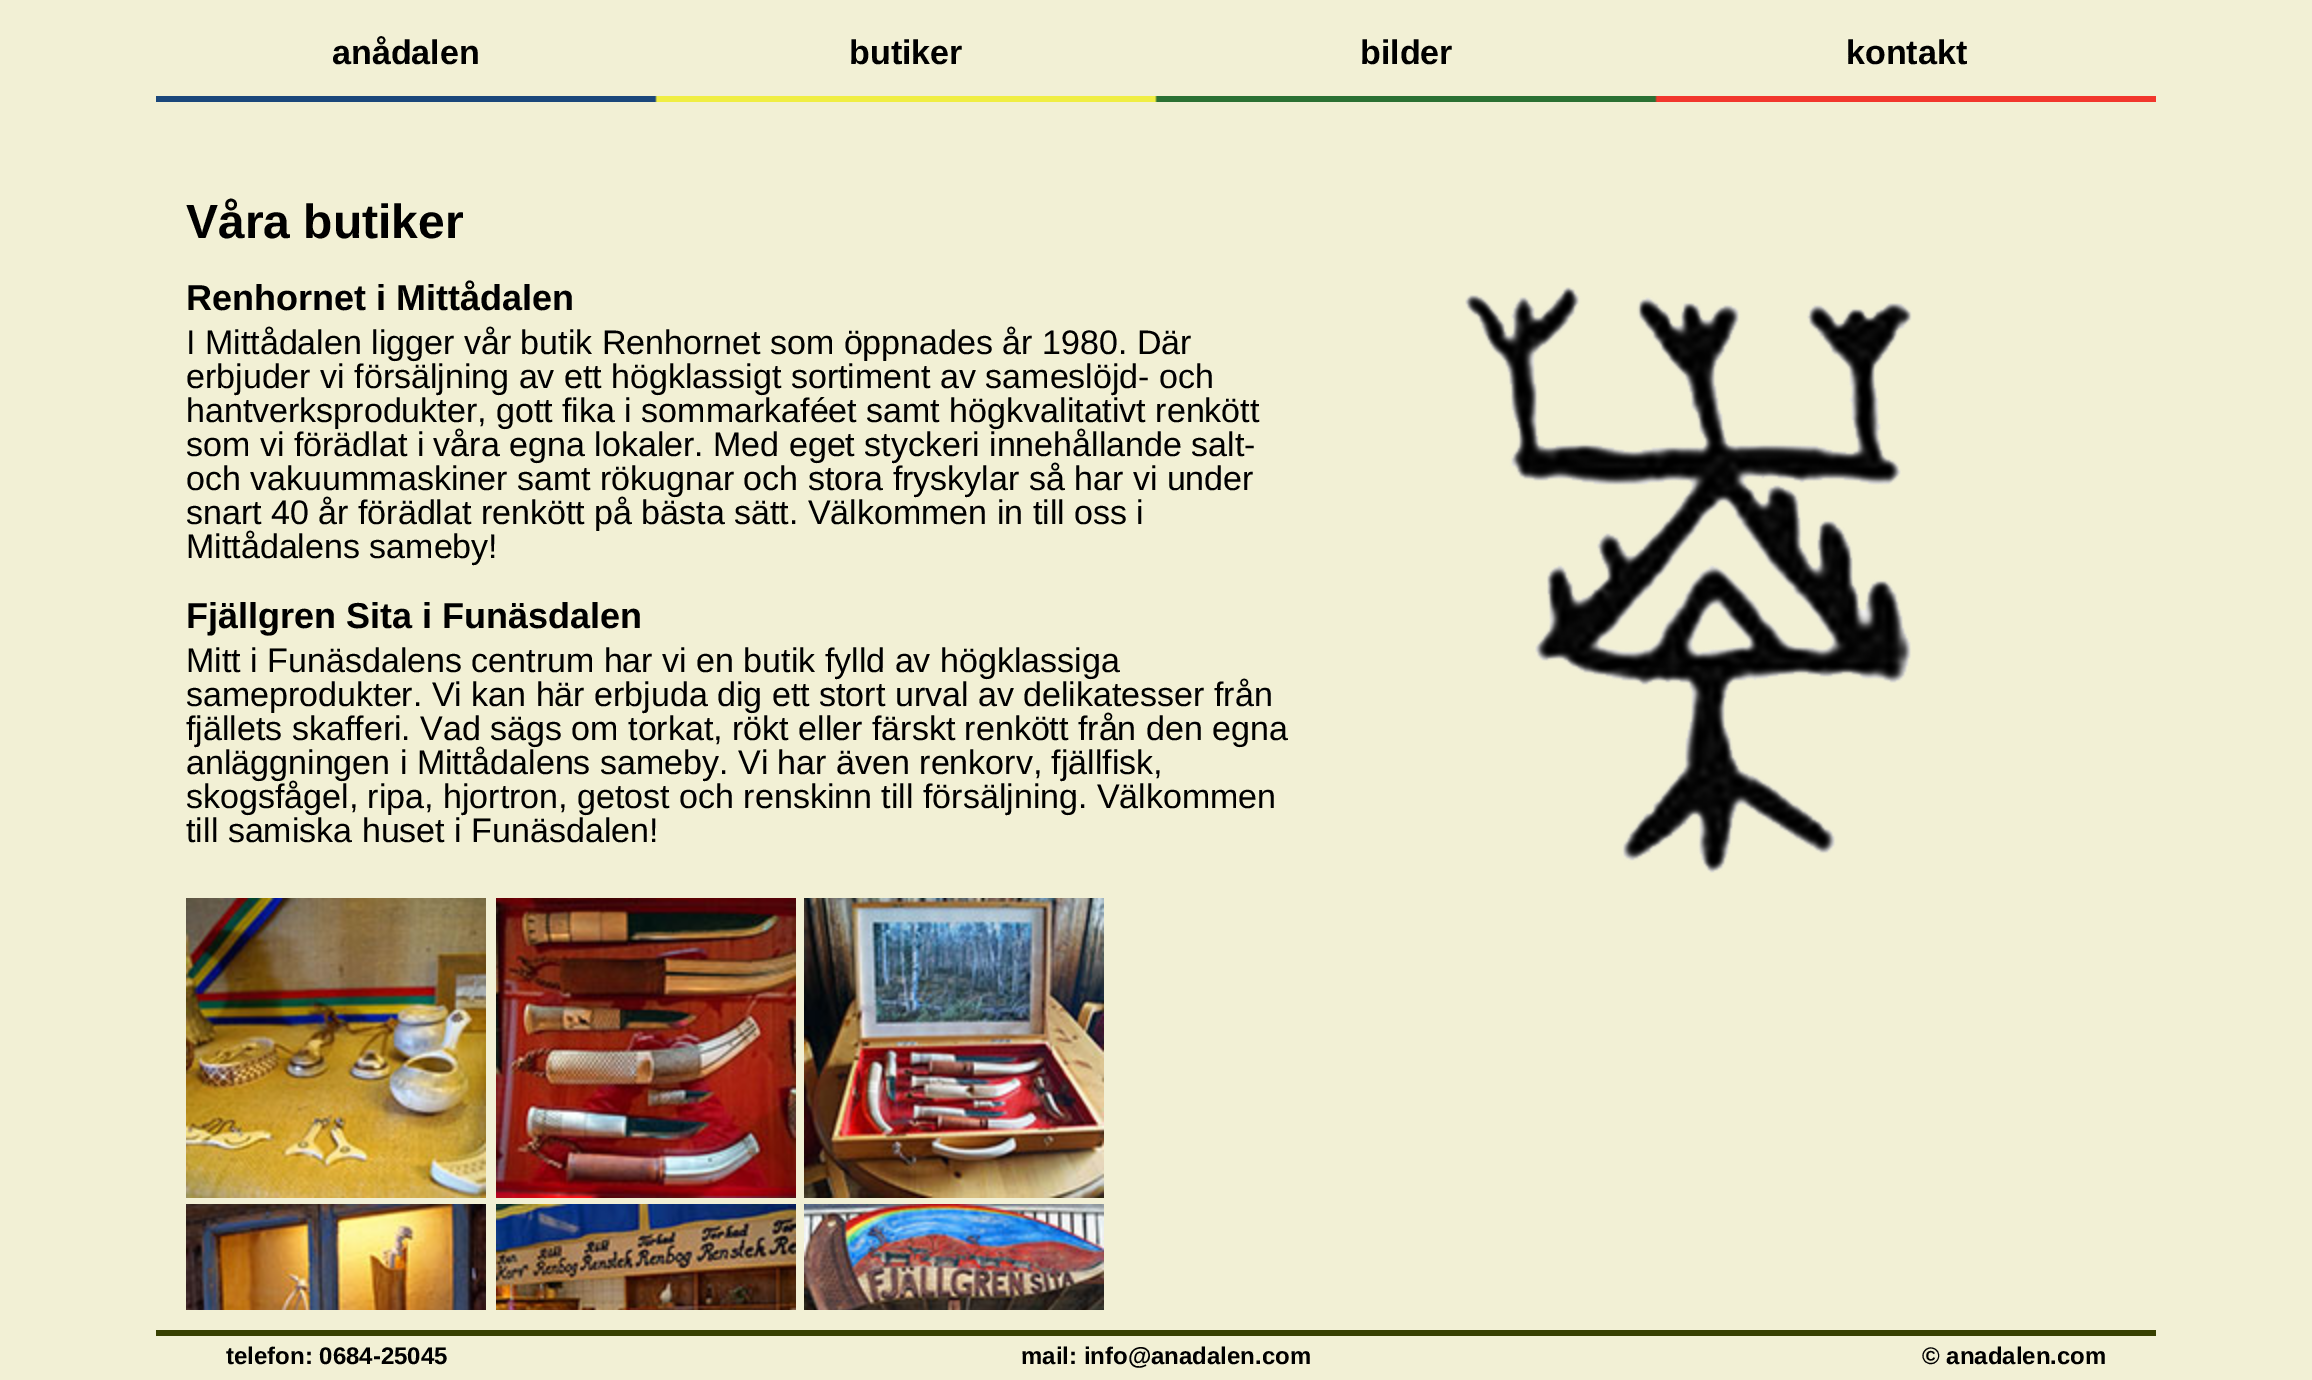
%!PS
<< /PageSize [2312 1380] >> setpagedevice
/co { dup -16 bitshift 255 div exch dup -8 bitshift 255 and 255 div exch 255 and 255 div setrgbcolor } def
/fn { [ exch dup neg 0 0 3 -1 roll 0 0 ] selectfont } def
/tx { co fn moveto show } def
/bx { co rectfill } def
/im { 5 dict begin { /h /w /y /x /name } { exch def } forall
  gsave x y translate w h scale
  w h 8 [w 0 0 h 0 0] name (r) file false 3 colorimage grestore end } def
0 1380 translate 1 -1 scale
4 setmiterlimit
0 0 2312 1380 16#F2F0D5 bx
(media/1.raw) 156 96 2000 6 im
(media/2.raw) 186 898 300 300 im
(media/3.raw) 496 898 300 300 im
(media/4.raw) 804 898 300 300 im
(media/5.raw) 186 1204 300 106 im
(media/6.raw) 496 1204 300 106 im
(media/7.raw) 804 1204 300 106 im
(media/8.raw) 1465 287 447 586 im
156 1330 2000 6 16#384001 bx
(anådalen) 332 64 /LiberationSans-Bold 34 16#000000 tx
(butiker) 849 64 /LiberationSans-Bold 34 16#000000 tx
(bilder) 1360 64 /LiberationSans-Bold 34 16#000000 tx
(kontakt) 1846 64 /LiberationSans-Bold 34 16#000000 tx
(Våra butiker) 186 238 /LiberationSans-Bold 48 16#000000 tx
(Renhornet i Mittådalen) 186 310 /LiberationSans-Bold 36 16#000000 tx
(I Mittådalen ligger vår butik Renhornet som öppnades år 1980. Där) 186 354 /LiberationSans-Regular 34 16#000000 tx
(erbjuder vi försäljning av ett högklassigt sortiment av sameslöjd- och) 186 388 /LiberationSans-Regular 34 16#000000 tx
(hantverksprodukter, gott fika i sommarkaféet samt högkvalitativt renkött) 186 422 /LiberationSans-Regular 34 16#000000 tx
(som vi förädlat i våra egna lokaler. Med eget styckeri innehållande salt-) 186 456 /LiberationSans-Regular 34 16#000000 tx
(och vakuummaskiner samt rökugnar och stora fryskylar så har vi under) 186 490 /LiberationSans-Regular 34 16#000000 tx
(snart 40 år förädlat renkött på bästa sätt. Välkommen in till oss i) 186 524 /LiberationSans-Regular 34 16#000000 tx
(Mittådalens sameby!) 186 558 /LiberationSans-Regular 34 16#000000 tx
(Fjällgren Sita i Funäsdalen) 186 628 /LiberationSans-Bold 36 16#000000 tx
(Mitt i Funäsdalens centrum har vi en butik fylld av högklassiga) 186 672 /LiberationSans-Regular 34 16#000000 tx
(sameprodukter. Vi kan här erbjuda dig ett stort urval av delikatesser från) 186 706 /LiberationSans-Regular 34 16#000000 tx
(fjällets skafferi. Vad sägs om torkat, rökt eller färskt renkött från den egna) 186 740 /LiberationSans-Regular 34 16#000000 tx
(anläggningen i Mittådalens sameby. Vi har även renkorv, fjällfisk,) 186 774 /LiberationSans-Regular 34 16#000000 tx
(skogsfågel, ripa, hjortron, getost och renskinn till försäljning. Välkommen) 186 808 /LiberationSans-Regular 34 16#000000 tx
(till samiska huset i Funäsdalen!) 186 842 /LiberationSans-Regular 34 16#000000 tx
(telefon: 0684-25045) 226 1364 /LiberationSans-Bold 24 16#000000 tx
(mail: info@anadalen.com) 1021 1364 /LiberationSans-Bold 24 16#000000 tx
(© anadalen.com) 1922 1364 /LiberationSans-Bold 24 16#000000 tx
showpage
